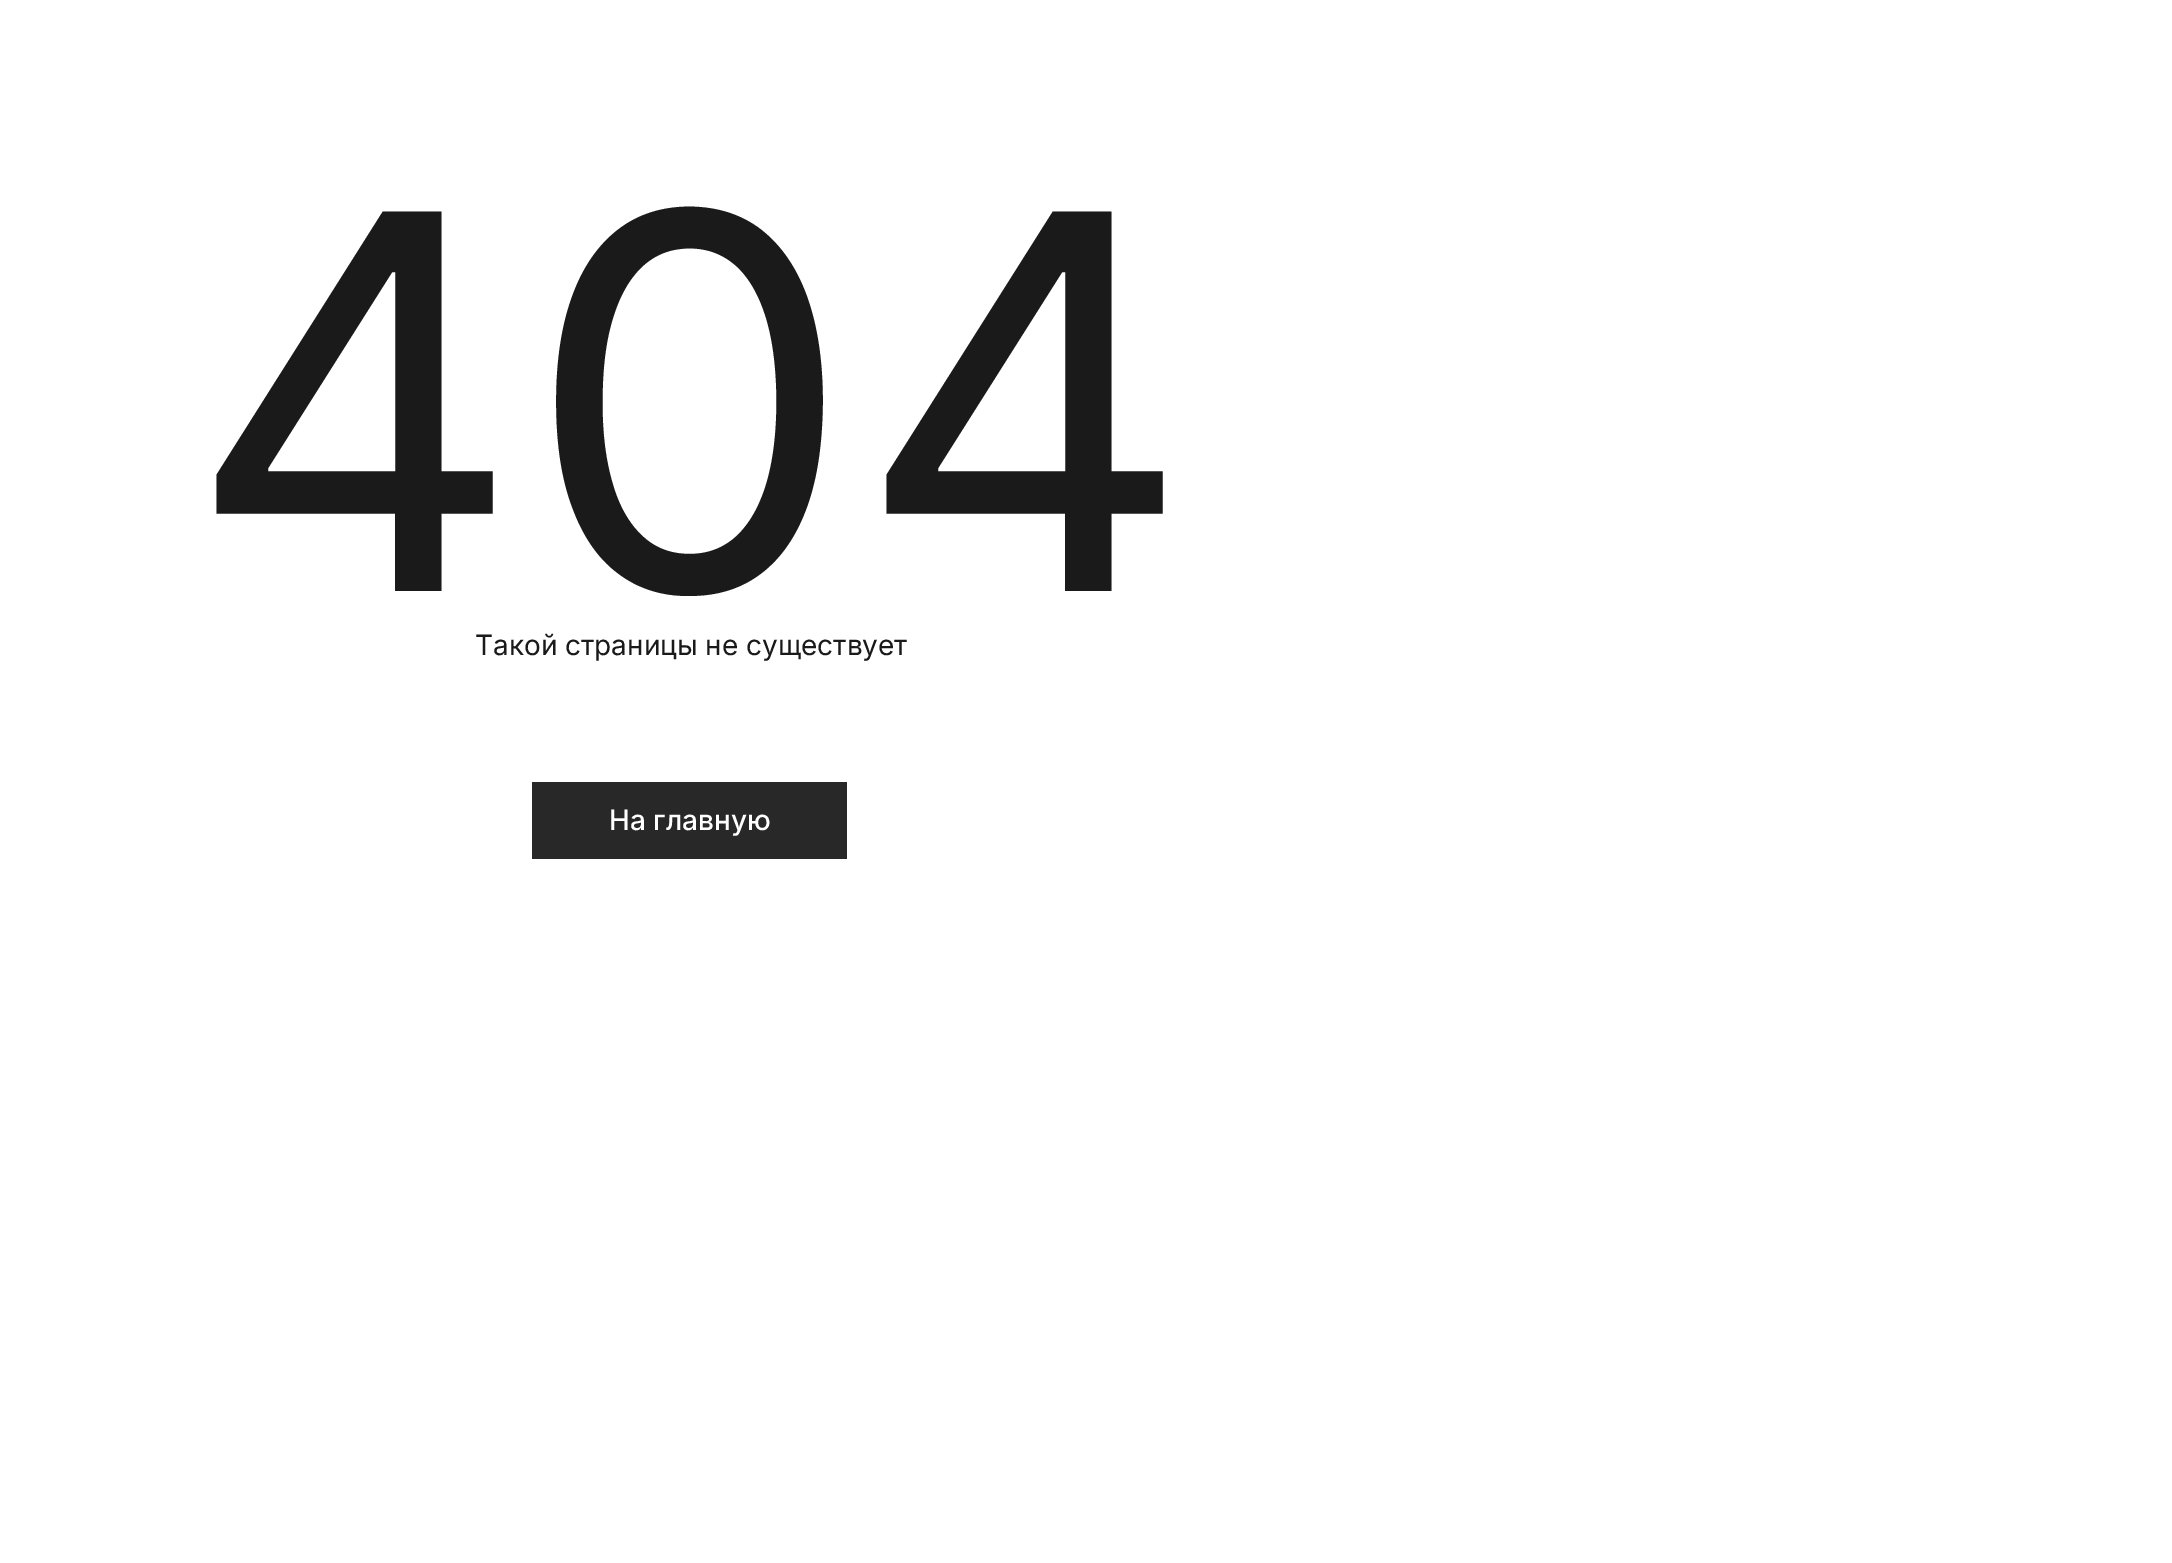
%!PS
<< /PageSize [2172 1563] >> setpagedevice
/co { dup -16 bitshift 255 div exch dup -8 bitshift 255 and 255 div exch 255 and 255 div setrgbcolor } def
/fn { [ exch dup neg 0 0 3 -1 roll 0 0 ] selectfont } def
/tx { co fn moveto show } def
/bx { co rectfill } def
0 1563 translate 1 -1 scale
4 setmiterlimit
0 0 2172 1563 16#FFFFFF bx
532 782 315 77 16#282828 bx
(404) 186 591 /Inter-Regular 525 16#1A1A1A tx
(Такой страницы не существует) 475 655 /Inter-Regular 28 16#1A1A1A tx
(На главную) 609 830 /Inter-Medium 28 16#FFFFFF tx
showpage
